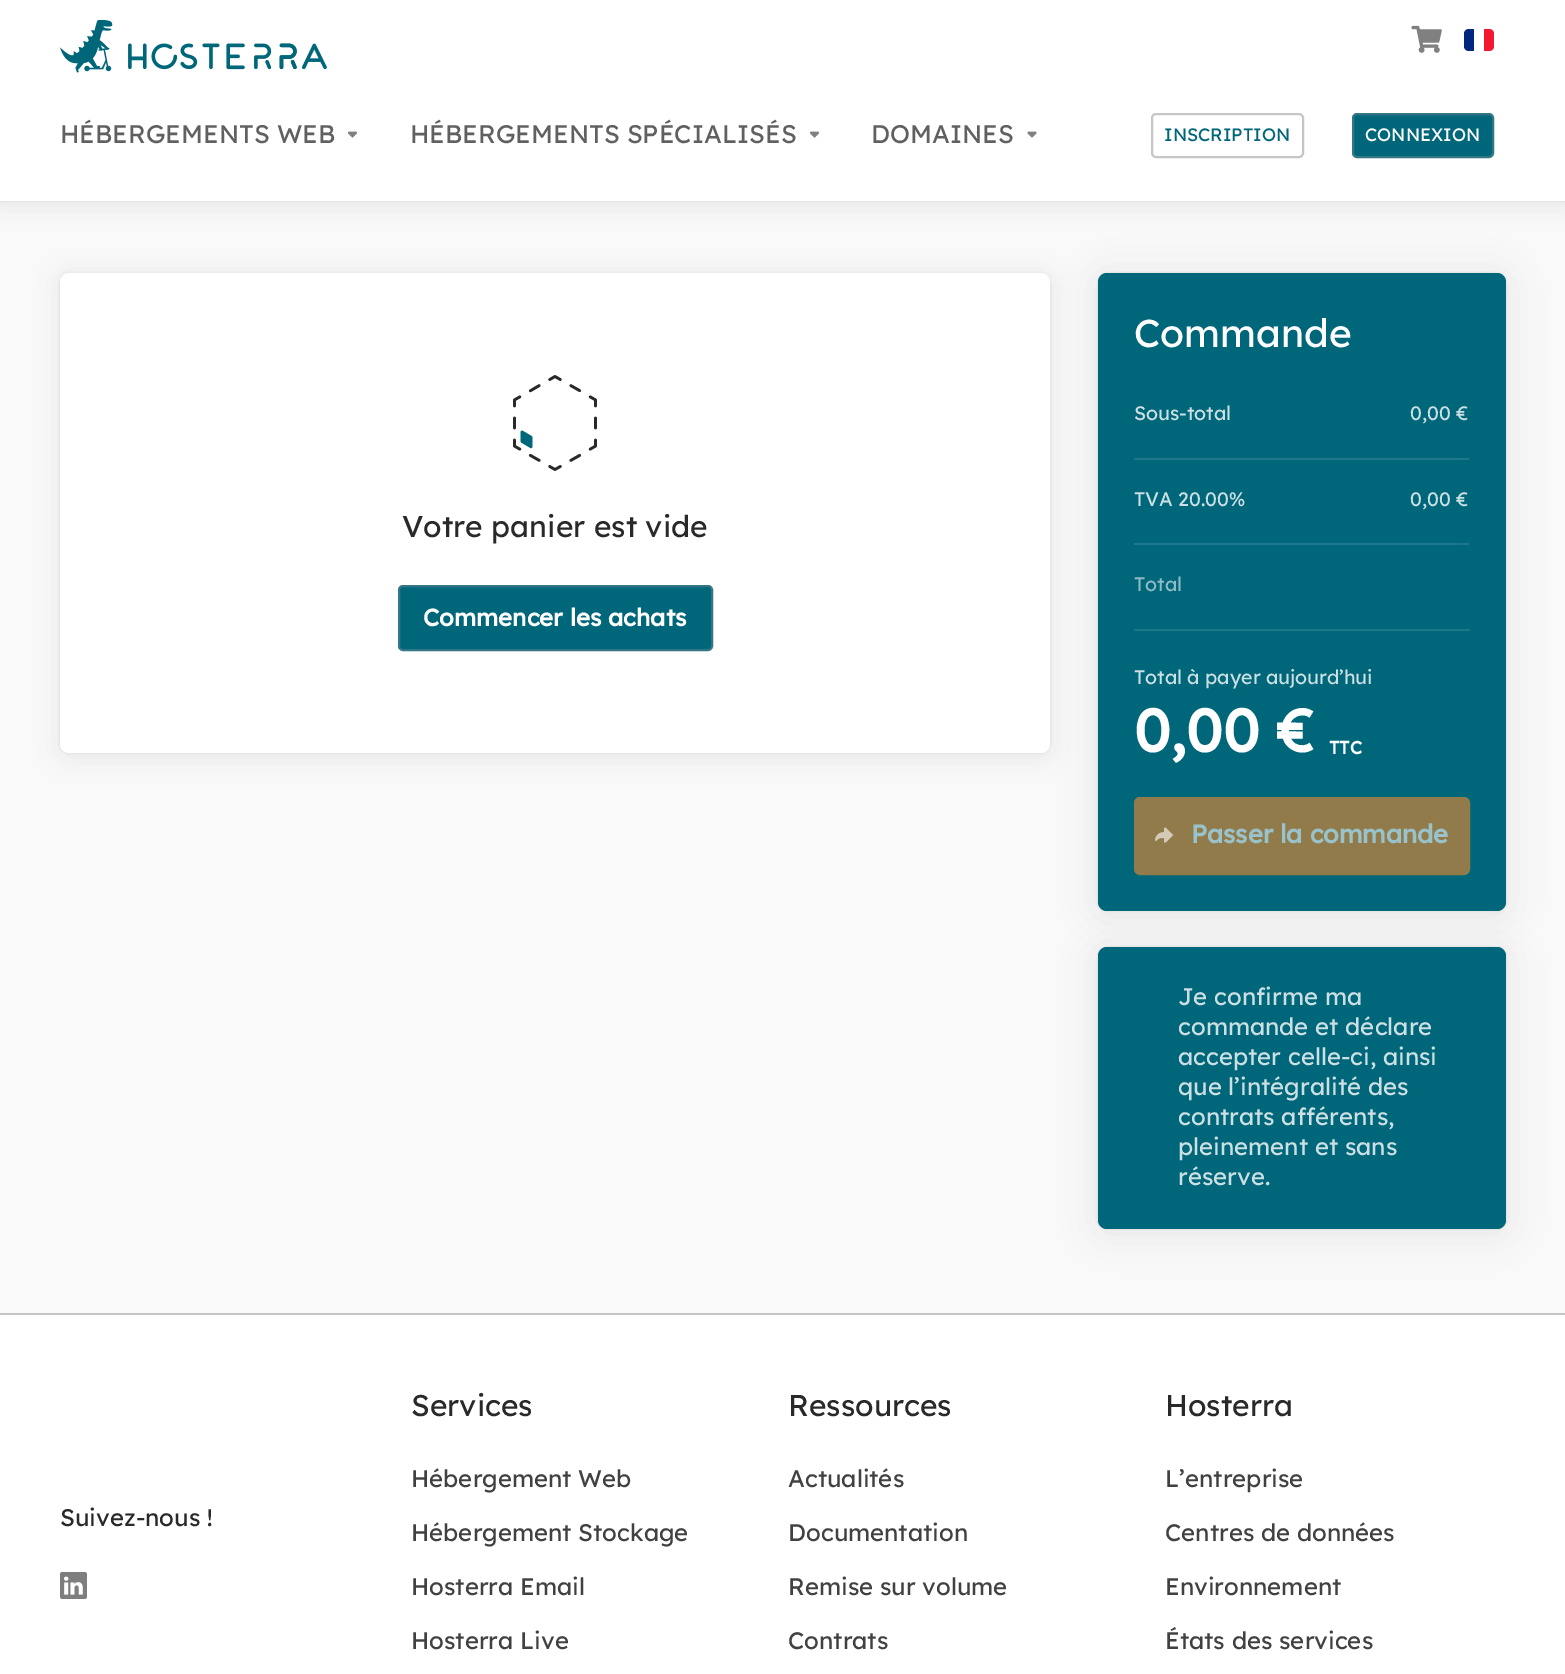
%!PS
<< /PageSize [1565 1674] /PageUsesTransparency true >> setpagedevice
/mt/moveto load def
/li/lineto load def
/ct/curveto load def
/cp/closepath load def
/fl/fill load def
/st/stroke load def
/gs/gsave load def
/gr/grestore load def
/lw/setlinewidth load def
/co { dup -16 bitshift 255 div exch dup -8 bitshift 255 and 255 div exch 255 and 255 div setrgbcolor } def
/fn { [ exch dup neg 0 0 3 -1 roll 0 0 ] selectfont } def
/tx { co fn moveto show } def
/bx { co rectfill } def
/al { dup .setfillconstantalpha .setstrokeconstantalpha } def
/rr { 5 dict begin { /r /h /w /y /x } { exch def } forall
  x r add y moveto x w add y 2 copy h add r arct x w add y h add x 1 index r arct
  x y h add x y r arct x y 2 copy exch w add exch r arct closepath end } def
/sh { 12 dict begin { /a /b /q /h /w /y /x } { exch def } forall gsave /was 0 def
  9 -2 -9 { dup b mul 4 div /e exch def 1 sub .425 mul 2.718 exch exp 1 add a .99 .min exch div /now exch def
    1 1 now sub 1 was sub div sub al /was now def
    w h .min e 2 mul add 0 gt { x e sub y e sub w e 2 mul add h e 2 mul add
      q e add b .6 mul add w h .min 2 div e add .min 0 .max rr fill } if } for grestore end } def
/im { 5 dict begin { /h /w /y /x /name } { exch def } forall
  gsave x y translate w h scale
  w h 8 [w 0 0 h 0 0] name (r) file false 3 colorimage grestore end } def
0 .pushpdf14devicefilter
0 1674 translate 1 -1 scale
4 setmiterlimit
0 0 1565 1674 16#F9F9F9 bx
16#000000 co
0 3 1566 201 0 12 .08 sh
0 0 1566 201 0 1 .1 sh
0 0 1565 201 16#FFFFFF bx
(media/1.raw) 60 20 267 53 im
(media/2.raw) 1411 25 31 28 im
16#00267F co
1469 29 mt 1474 29 li 1474 51 li 1469 51 li 1466 51 1464 49 1464 46 ct 1464 34 li 1464 31 1466 29 1469 29 ct cp fl
16#F31830 co
1484 29 mt 1489 29 li 1492 29 1494 31 1494 34 ct 1494 46 li 1494 49 1492 51 1489 51 ct 1484 51 li cp fl
(media/3.raw) 348 131 9 7 im
(media/3.raw) 810 131 9 7 im
(media/4.raw) 1027 131 10 7 im
16#C6C6C6 co
2 lw
1152 114 151 43 4 rr st
16#00667A co
1353 114 140 43 4 rr gs fl gr
16#337685 co
st
16#000000 co
60 276 990 480 9 12 .08 sh
60 273 990 480 9 1 .1 sh
16#FFFFFF co
60 273 990 480 9 rr fl
(media/5.raw) 513 375 84 96 im
16#00667A co
399 586 313 64 4 rr gs fl gr
16#337685 co
st
16#000000 co
1098 276 408 638 9 18 .08 sh
1098 273 408 638 9 1 .1 sh
16#00667A co
1098 273 408 638 9 rr fl
1134 458 335 2 16#1F788A bx
1134 543 335 2 16#1F788A bx
1134 629 336 2 16#1F788A bx
16#917B4B co
1135 798 334 76 5 rr gs fl gr
st
(media/6.raw) 1155 827 18 16 im
16#000000 co
1098 950 408 282 9 18 .08 sh
1098 947 408 282 9 1 .1 sh
16#00667A co
1098 947 408 282 9 rr fl
0 1315 1565 359 16#FFFFFF bx
0 1313 1565 2 16#C6C6C6 bx
(media/7.raw) 60 1572 27 27 im
(HÉBERGEMENTS WEB) 60 143 /Lexend-Regular 25.5 16#606060 tx
(HÉBERGEMENTS SPÉCIALISÉS) 410 143 /Lexend-Regular 25.5 16#606060 tx
(DOMAINES) 871 143 /Lexend-Regular 25.5 16#606060 tx
(INSCRIPTION) 1164 141 /Lexend-Regular 18 16#00667A tx
(CONNEXION) 1365 141 /Lexend-Regular 18 16#FFFFFF tx
(Votre panier est vide) 402 537 /Lexend-Regular 30 16#292929 tx
(Commencer les achats) 423 626 /Lexend-Bold 24 16#FFFFFF tx
(Commande) 1134 347 /Lexend-Regular 39 16#FFFFFF tx
(Sous-total) 1134 420 /Lexend-Regular 19.5 16#CCE0E4 tx
(0,00 €) 1410 420 /Lexend-Regular 19.5 16#CCE0E4 tx
(TVA 20.00%) 1134 506 /Lexend-Regular 19.5 16#CCE0E4 tx
(0,00 €) 1410 506 /Lexend-Regular 19.5 16#CCE0E4 tx
(Total) 1134 591 /Lexend-Regular 19.5 16#8FBCC4 tx
(Total à payer aujourd’hui) 1134 684 /Lexend-Regular 19.5 16#CCE0E4 tx
(0,00 €) 1134 752 /Lexend-Bold 60 16#FFFFFF tx
(TTC) 1329 754 /Lexend-Bold 18 16#FFFFFF tx
(Passer la commande) 1191 843 /Lexend-Bold 25.5 16#99C2CA tx
(Je confirme ma) 1178 1005 /Lexend-Regular 24 16#CCE0E4 tx
(commande et déclare) 1178 1035 /Lexend-Regular 24 16#CCE0E4 tx
(accepter celle-ci, ainsi) 1178 1065 /Lexend-Regular 24 16#CCE0E4 tx
(que l’intégralité des) 1178 1095 /Lexend-Regular 24 16#CCE0E4 tx
(contrats afférents,) 1178 1125 /Lexend-Regular 24 16#CCE0E4 tx
(pleinement et sans) 1178 1155 /Lexend-Regular 24 16#CCE0E4 tx
(réserve.) 1178 1185 /Lexend-Regular 24 16#CCE0E4 tx
(Suivez-nous !) 60 1526 /Lexend-Regular 24 16#292929 tx
(Services) 411 1416 /Lexend-Regular 30 16#292929 tx
(Hébergement Web) 411 1487 /Lexend-Regular 24 16#414141 tx
(Hébergement Stockage) 411 1541 /Lexend-Regular 24 16#414141 tx
(Hosterra Email) 411 1595 /Lexend-Regular 24 16#414141 tx
(Hosterra Live) 411 1649 /Lexend-Regular 24 16#414141 tx
(Ressources) 788 1416 /Lexend-Regular 30 16#292929 tx
(Actualités) 788 1487 /Lexend-Regular 24 16#414141 tx
(Documentation) 788 1541 /Lexend-Regular 24 16#414141 tx
(Remise sur volume) 788 1595 /Lexend-Regular 24 16#414141 tx
(Contrats) 788 1649 /Lexend-Regular 24 16#414141 tx
(Hosterra) 1165 1416 /Lexend-Regular 30 16#292929 tx
(L’entreprise) 1165 1487 /Lexend-Regular 24 16#414141 tx
(Centres de données) 1165 1541 /Lexend-Regular 24 16#414141 tx
(Environnement) 1165 1595 /Lexend-Regular 24 16#414141 tx
(États des services) 1165 1649 /Lexend-Regular 24 16#414141 tx
.poppdf14devicefilter showpage
